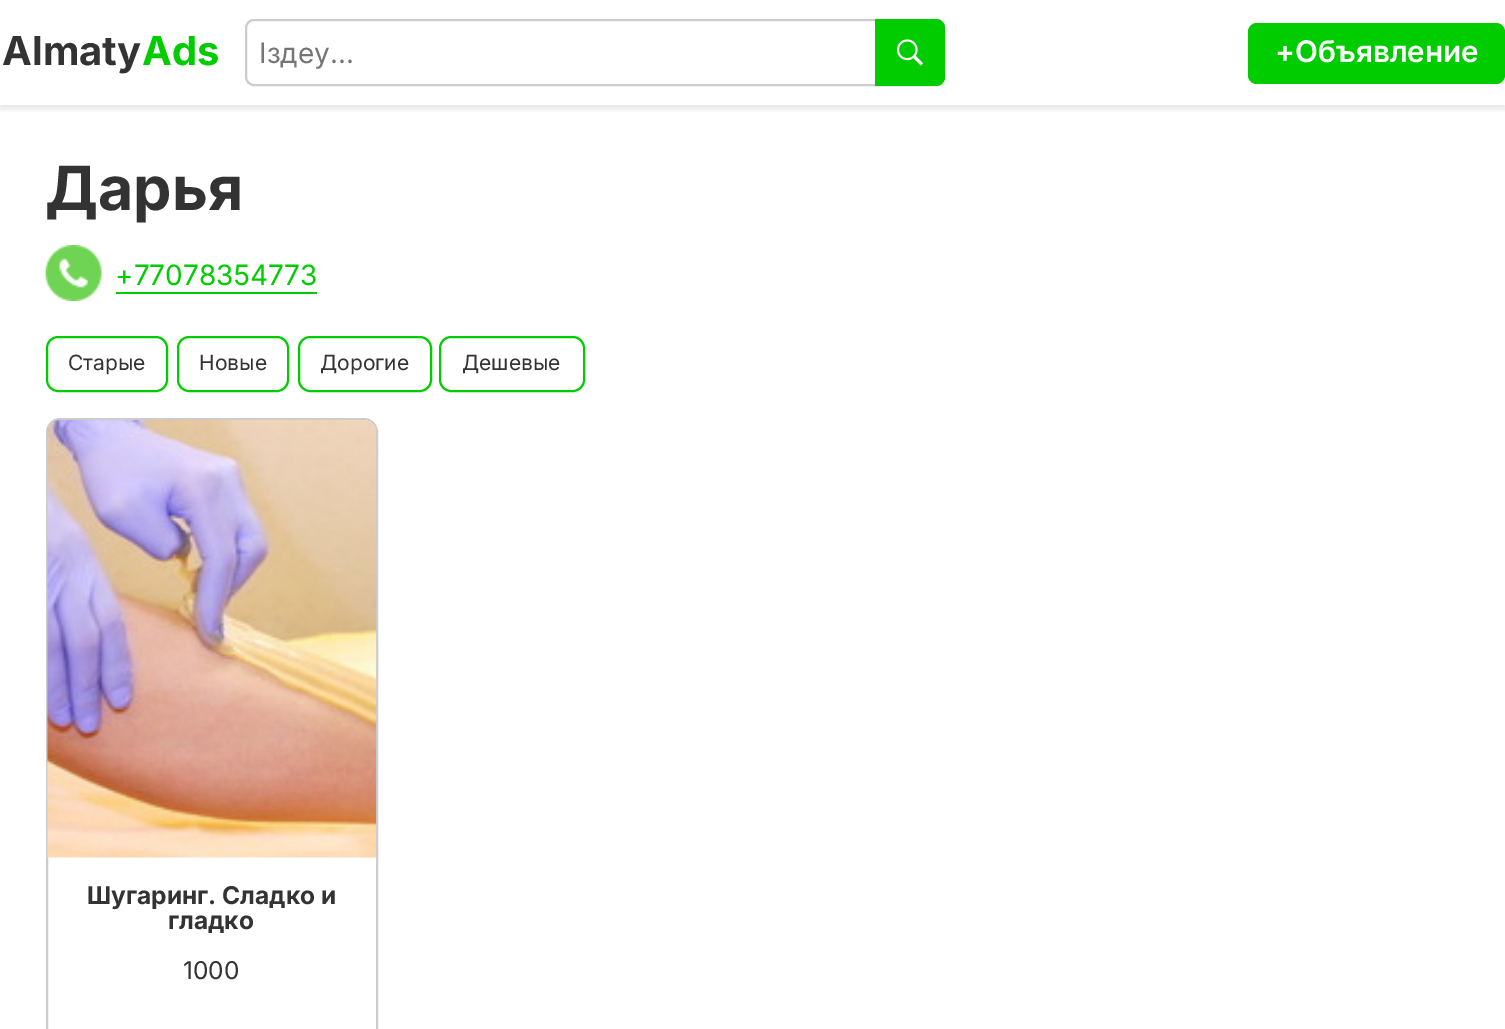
%!PS
<< /PageSize [1505 1029] /PageUsesTransparency true >> setpagedevice
/mt/moveto load def
/li/lineto load def
/ct/curveto load def
/cp/closepath load def
/fl/fill load def
/st/stroke load def
/gs/gsave load def
/gr/grestore load def
/lw/setlinewidth load def
/co { dup -16 bitshift 255 div exch dup -8 bitshift 255 and 255 div exch 255 and 255 div setrgbcolor } def
/fn { [ exch dup neg 0 0 3 -1 roll 0 0 ] selectfont } def
/tx { co fn moveto show } def
/bx { co rectfill } def
/al { dup .setfillconstantalpha .setstrokeconstantalpha } def
/rr { 5 dict begin { /r /h /w /y /x } { exch def } forall
  x r add y moveto x w add y 2 copy h add r arct x w add y h add x 1 index r arct
  x y h add x y r arct x y 2 copy exch w add exch r arct closepath end } def
/sh { 12 dict begin { /a /b /q /h /w /y /x } { exch def } forall gsave /was 0 def
  9 -2 -9 { dup b mul 4 div /e exch def 1 sub .425 mul 2.718 exch exp 1 add a .99 .min exch div /now exch def
    1 1 now sub 1 was sub div sub al /was now def
    w h .min e 2 mul add 0 gt { x e sub y e sub w e 2 mul add h e 2 mul add
      q e add b .6 mul add w h .min 2 div e add .min 0 .max rr fill } if } for grestore end } def
/im { 5 dict begin { /h /w /y /x /name } { exch def } forall
  gsave x y translate w h scale
  w h 8 [w 0 0 h 0 0] name (r) file false 3 colorimage grestore end } def
0 .pushpdf14devicefilter
0 1029 translate 1 -1 scale
4 setmiterlimit
0 0 1505 1029 16#FFFFFF bx
gs
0 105 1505 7 rectclip
16#000000 co
0 4 1505 105 0 3.5 .1 sh
gr
16#CCCCCC co
2 lw
246 20 698 65 8 rr st
16#00CC00 co
875 19 mt 936 19 li 941 19 945 23 945 28 ct 945 77 li 945 82 941 86 936 86 ct 875 86 li cp fl
(media/1.raw) 896 39 27 27 im
1248 23 257 61 9 rr fl
(media/2.raw) 45 245 57 56 im
116 292 201 2 16#00CC00 bx
47 337 120 54 11 rr st
178 337 110 54 11 rr st
299 337 132 54 11 rr st
440 337 144 54 11 rr st
16#CCCCCC co
47 419 330 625 13 rr st
(media/3.raw) 47 420 330 438 im
(Almaty) 2 65 /Inter-Bold 40 16#333333 tx
(Ads) 142 65 /Inter-Bold 40 16#00CC00 tx
(Іздеу...) 259 63 /Inter-Regular 28 16#757575 tx
(+Объявление) 1275 62 /Inter-SemiBold 29.75 16#FFFFFF tx
(Дарья) 45 210 /Inter-Bold 61 16#333333 tx
(+77078354773) 115 285 /Inter-Regular 28 16#00CC00 tx
(Старые) 68 370 /Inter-Regular 21 16#333333 tx
(Новые) 199 370 /Inter-Regular 21 16#333333 tx
(Дорогие) 320 370 /Inter-Regular 21 16#333333 tx
(Дешевые) 462 370 /Inter-Regular 21 16#333333 tx
(Шугаринг. Сладко и) 87 904 /Inter-Bold 24.5 16#333333 tx
(гладко) 168 929 /Inter-Bold 24.5 16#333333 tx
(1000) 183 979 /Inter-Regular 24.5 16#333333 tx
.poppdf14devicefilter showpage
